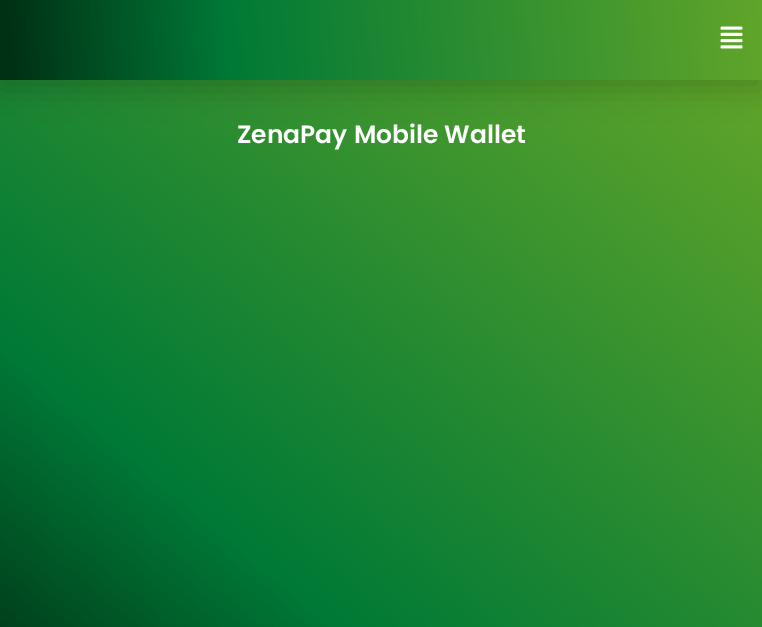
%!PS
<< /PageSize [762 627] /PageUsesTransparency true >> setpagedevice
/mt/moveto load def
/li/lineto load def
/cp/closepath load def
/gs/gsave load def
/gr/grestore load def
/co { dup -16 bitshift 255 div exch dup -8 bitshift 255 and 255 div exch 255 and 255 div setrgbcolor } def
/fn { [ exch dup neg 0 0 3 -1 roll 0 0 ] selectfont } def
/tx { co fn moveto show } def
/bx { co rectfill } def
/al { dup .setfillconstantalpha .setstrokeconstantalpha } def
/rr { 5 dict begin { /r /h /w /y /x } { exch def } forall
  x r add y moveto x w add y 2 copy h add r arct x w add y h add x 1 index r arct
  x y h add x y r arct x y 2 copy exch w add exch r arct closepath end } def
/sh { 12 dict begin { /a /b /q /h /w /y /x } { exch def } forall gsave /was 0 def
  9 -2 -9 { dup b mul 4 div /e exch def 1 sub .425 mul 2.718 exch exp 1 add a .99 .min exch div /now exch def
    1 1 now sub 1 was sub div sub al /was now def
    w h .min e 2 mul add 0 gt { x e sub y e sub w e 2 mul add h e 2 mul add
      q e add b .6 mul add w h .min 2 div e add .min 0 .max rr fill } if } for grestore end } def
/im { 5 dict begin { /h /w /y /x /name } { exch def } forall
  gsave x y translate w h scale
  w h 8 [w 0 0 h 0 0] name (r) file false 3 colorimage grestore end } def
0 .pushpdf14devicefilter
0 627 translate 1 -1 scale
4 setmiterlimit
0 0 762 627 16#FFFFFF bx
gs 0 80 mt 762 80 li 762 627 li 0 627 li cp clip newpath
<< /ShadingType 2 /ColorSpace /DeviceRGB /Coords [698 27 64 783] /Extend [true true] /Function << /FunctionType 3 /Domain [0 1] /Functions [<< /FunctionType 2 /Domain [0 1] /C0 [.38 .647 .165] /C1 [0 .475 .212] /N 1 >> << /FunctionType 2 /Domain [0 1] /C0 [0 .475 .212] /C1 [0 .188 .082] /N 1 >> << /FunctionType 2 /Domain [0 1] /C0 [0 .188 .082] /C1 [0 .188 .082] /N 1 >>] /Bounds [.7 .99] /Encode [0 1 0 1 0 1] >> >> shfill gr
16#000000 co
0 10 762 80 0 15 .19 sh
gs 0 0 mt 762 0 li 762 80 li 0 80 li cp clip newpath
<< /ShadingType 2 /ColorSpace /DeviceRGB /Coords [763 13 -.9 67] /Extend [true true] /Function << /FunctionType 3 /Domain [0 1] /Functions [<< /FunctionType 2 /Domain [0 1] /C0 [.38 .647 .165] /C1 [0 .475 .212] /N 1 >> << /FunctionType 2 /Domain [0 1] /C0 [0 .475 .212] /C1 [0 .188 .082] /N 1 >> << /FunctionType 2 /Domain [0 1] /C0 [0 .188 .082] /C1 [0 .188 .082] /N 1 >>] /Bounds [.7 .99] /Encode [0 1 0 1 0 1] >> >> shfill gr
(media/1.raw) 720 26 23 23 im
(ZenaPay Mobile Wallet) 237 143 /Poppins-SemiBold 25 16#FFFFFF tx
.poppdf14devicefilter showpage
